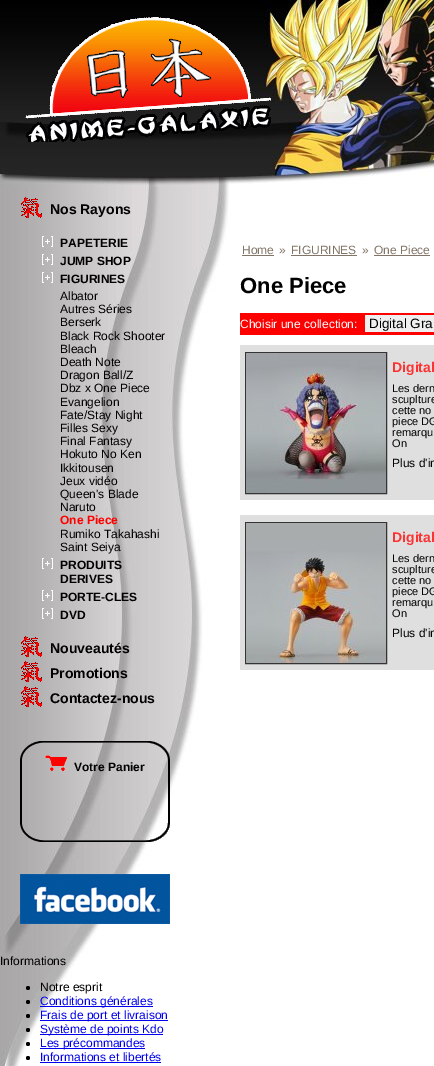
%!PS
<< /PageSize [434 1066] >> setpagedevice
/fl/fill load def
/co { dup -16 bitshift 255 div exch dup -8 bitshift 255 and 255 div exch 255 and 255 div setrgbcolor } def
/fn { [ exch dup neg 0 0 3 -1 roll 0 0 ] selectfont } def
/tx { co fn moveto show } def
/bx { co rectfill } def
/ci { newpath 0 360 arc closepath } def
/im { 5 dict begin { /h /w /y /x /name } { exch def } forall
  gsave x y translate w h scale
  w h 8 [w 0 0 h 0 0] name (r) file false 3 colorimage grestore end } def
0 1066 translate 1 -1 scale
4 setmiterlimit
0 0 434 1066 16#FFFFFF bx
(media/1.raw) 0 0 434 187 im
(media/2.raw) 25 17 246 125 im
(media/3.raw) 0 187 229 879 im
(media/4.raw) 21 197 21 21 im
(media/5.raw) 42 236 11 11 im
(media/5.raw) 42 254 11 11 im
(media/5.raw) 42 272 11 11 im
(media/5.raw) 42 558 11 11 im
(media/5.raw) 42 590 11 11 im
(media/5.raw) 42 608 11 11 im
(media/4.raw) 21 636 21 21 im
(media/4.raw) 21 661 21 21 im
(media/4.raw) 21 686 21 21 im
(media/6.raw) 20 741 150 101 im
(media/7.raw) 45 755 22 16 im
(media/8.raw) 20 874 150 50 im
16#000000 co
28 988 2 ci fl
28 1002 2 ci fl
40 1006 113 1 16#0000EE bx
16#000000 co
28 1016 2 ci fl
40 1020 128 1 16#0000EE bx
16#000000 co
28 1030 2 ci fl
40 1034 123 1 16#0000EE bx
16#000000 co
28 1044 2 ci fl
40 1048 105 1 16#0000EE bx
16#000000 co
28 1058 2 ci fl
40 1062 121 1 16#0000EE bx
242 255 32 1 16#827467 bx
291 255 66 1 16#827467 bx
374 255 56 1 16#827467 bx
240 313 194 22 16#FD0000 bx
365 315 69 17 16#EFEFEF bx
240 345 194 155 16#E0DFDF bx
16#353434 co
245.5 352.5 141 141 rectstroke
(media/9.raw) 246 353 140 140 im
240 515 194 155 16#E0DFDF bx
16#353434 co
245.5 522.5 141 141 rectstroke
(media/10.raw) 246 523 140 140 im
(Nos Rayons) 50 214 /LiberationSans-Bold 14 16#000000 tx
(PAPETERIE) 60 247 /LiberationSans-Bold 12 16#000000 tx
(JUMP SHOP) 60 265 /LiberationSans-Bold 12 16#000000 tx
(FIGURINES) 60 283 /LiberationSans-Bold 12 16#000000 tx
(Albator) 60 300 /LiberationSans-Regular 12 16#000000 tx
(Autres Séries) 60 313 /LiberationSans-Regular 12 16#000000 tx
(Berserk) 60 326 /LiberationSans-Regular 12 16#000000 tx
(Black Rock Shooter) 60 340 /LiberationSans-Regular 12 16#000000 tx
(Bleach) 60 353 /LiberationSans-Regular 12 16#000000 tx
(Death Note) 60 366 /LiberationSans-Regular 12 16#000000 tx
(Dragon Ball/Z) 60 379 /LiberationSans-Regular 12 16#000000 tx
(Dbz x One Piece) 60 392 /LiberationSans-Regular 12 16#000000 tx
(Evangelion) 60 406 /LiberationSans-Regular 12 16#000000 tx
(Fate/Stay Night) 60 419 /LiberationSans-Regular 12 16#000000 tx
(Filles Sexy) 60 432 /LiberationSans-Regular 12 16#000000 tx
(Final Fantasy) 60 445 /LiberationSans-Regular 12 16#000000 tx
(Hokuto No Ken) 60 458 /LiberationSans-Regular 12 16#000000 tx
(Ikkitousen) 60 472 /LiberationSans-Regular 12 16#000000 tx
(Jeux vidéo) 60 485 /LiberationSans-Regular 12 16#000000 tx
(Queen's Blade) 60 498 /LiberationSans-Regular 12 16#000000 tx
(Naruto) 60 511 /LiberationSans-Regular 12 16#000000 tx
(One Piece) 60 524 /LiberationSans-Bold 12 16#FF0000 tx
(Rumiko Takahashi) 60 538 /LiberationSans-Regular 12 16#000000 tx
(Saint Seiya) 60 551 /LiberationSans-Regular 12 16#000000 tx
(PRODUITS) 60 569 /LiberationSans-Bold 12 16#000000 tx
(DERIVES) 60 583 /LiberationSans-Bold 12 16#000000 tx
(PORTE-CLES) 60 601 /LiberationSans-Bold 12 16#000000 tx
(DVD) 60 619 /LiberationSans-Bold 12 16#000000 tx
(Nouveautés) 50 653 /LiberationSans-Bold 14 16#000000 tx
(Promotions) 50 678 /LiberationSans-Bold 14 16#000000 tx
(Contactez-nous) 50 703 /LiberationSans-Bold 14 16#000000 tx
(Votre Panier) 74 771 /LiberationSans-Bold 12 16#000000 tx
(Informations) 0 965 /LiberationSans-Regular 12 16#000000 tx
(Notre esprit) 40 991 /LiberationSans-Regular 12 16#000000 tx
(Conditions générales) 40 1005 /LiberationSans-Regular 12 16#0000EE tx
(Frais de port et livraison) 40 1019 /LiberationSans-Regular 12 16#0000EE tx
(Système de points Kdo) 40 1033 /LiberationSans-Regular 12 16#0000EE tx
(Les précommandes) 40 1047 /LiberationSans-Regular 12 16#0000EE tx
(Informations et libertés) 40 1061 /LiberationSans-Regular 12 16#0000EE tx
(Home) 242 254 /LiberationSans-Regular 12 16#827467 tx
(») 279 254 /LiberationSans-Regular 12 16#827467 tx
(FIGURINES) 291 254 /LiberationSans-Regular 12 16#827467 tx
(») 362 254 /LiberationSans-Regular 12 16#827467 tx
(One Piece) 374 254 /LiberationSans-Regular 12 16#827467 tx
(One Piece) 240 293 /LiberationSans-Bold 22 16#000000 tx
(Choisir une collection:) 240 328 /LiberationSans-Regular 12 16#FFFFFF tx
(Digital Gra) 369 328 /LiberationSans-Regular 13.5 16#000000 tx
(Digital) 392 372 /LiberationSans-Bold 14 16#FD3333 tx
(Les dern) 392 392 /LiberationSans-Regular 11 16#000000 tx
(scuplture) 392 403 /LiberationSans-Regular 11 16#000000 tx
(cette no) 392 414 /LiberationSans-Regular 11 16#000000 tx
(piece DG) 392 425 /LiberationSans-Regular 11 16#000000 tx
(remarqu) 392 436 /LiberationSans-Regular 11 16#000000 tx
(On) 392 447 /LiberationSans-Regular 11 16#000000 tx
(Plus d'in) 392 467 /LiberationSans-Regular 12 16#000000 tx
(Digital) 392 542 /LiberationSans-Bold 14 16#FD3333 tx
(Les dern) 392 562 /LiberationSans-Regular 11 16#000000 tx
(scuplture) 392 573 /LiberationSans-Regular 11 16#000000 tx
(cette no) 392 584 /LiberationSans-Regular 11 16#000000 tx
(piece DG) 392 595 /LiberationSans-Regular 11 16#000000 tx
(remarqu) 392 606 /LiberationSans-Regular 11 16#000000 tx
(On) 392 617 /LiberationSans-Regular 11 16#000000 tx
(Plus d'in) 392 637 /LiberationSans-Regular 12 16#000000 tx
showpage
